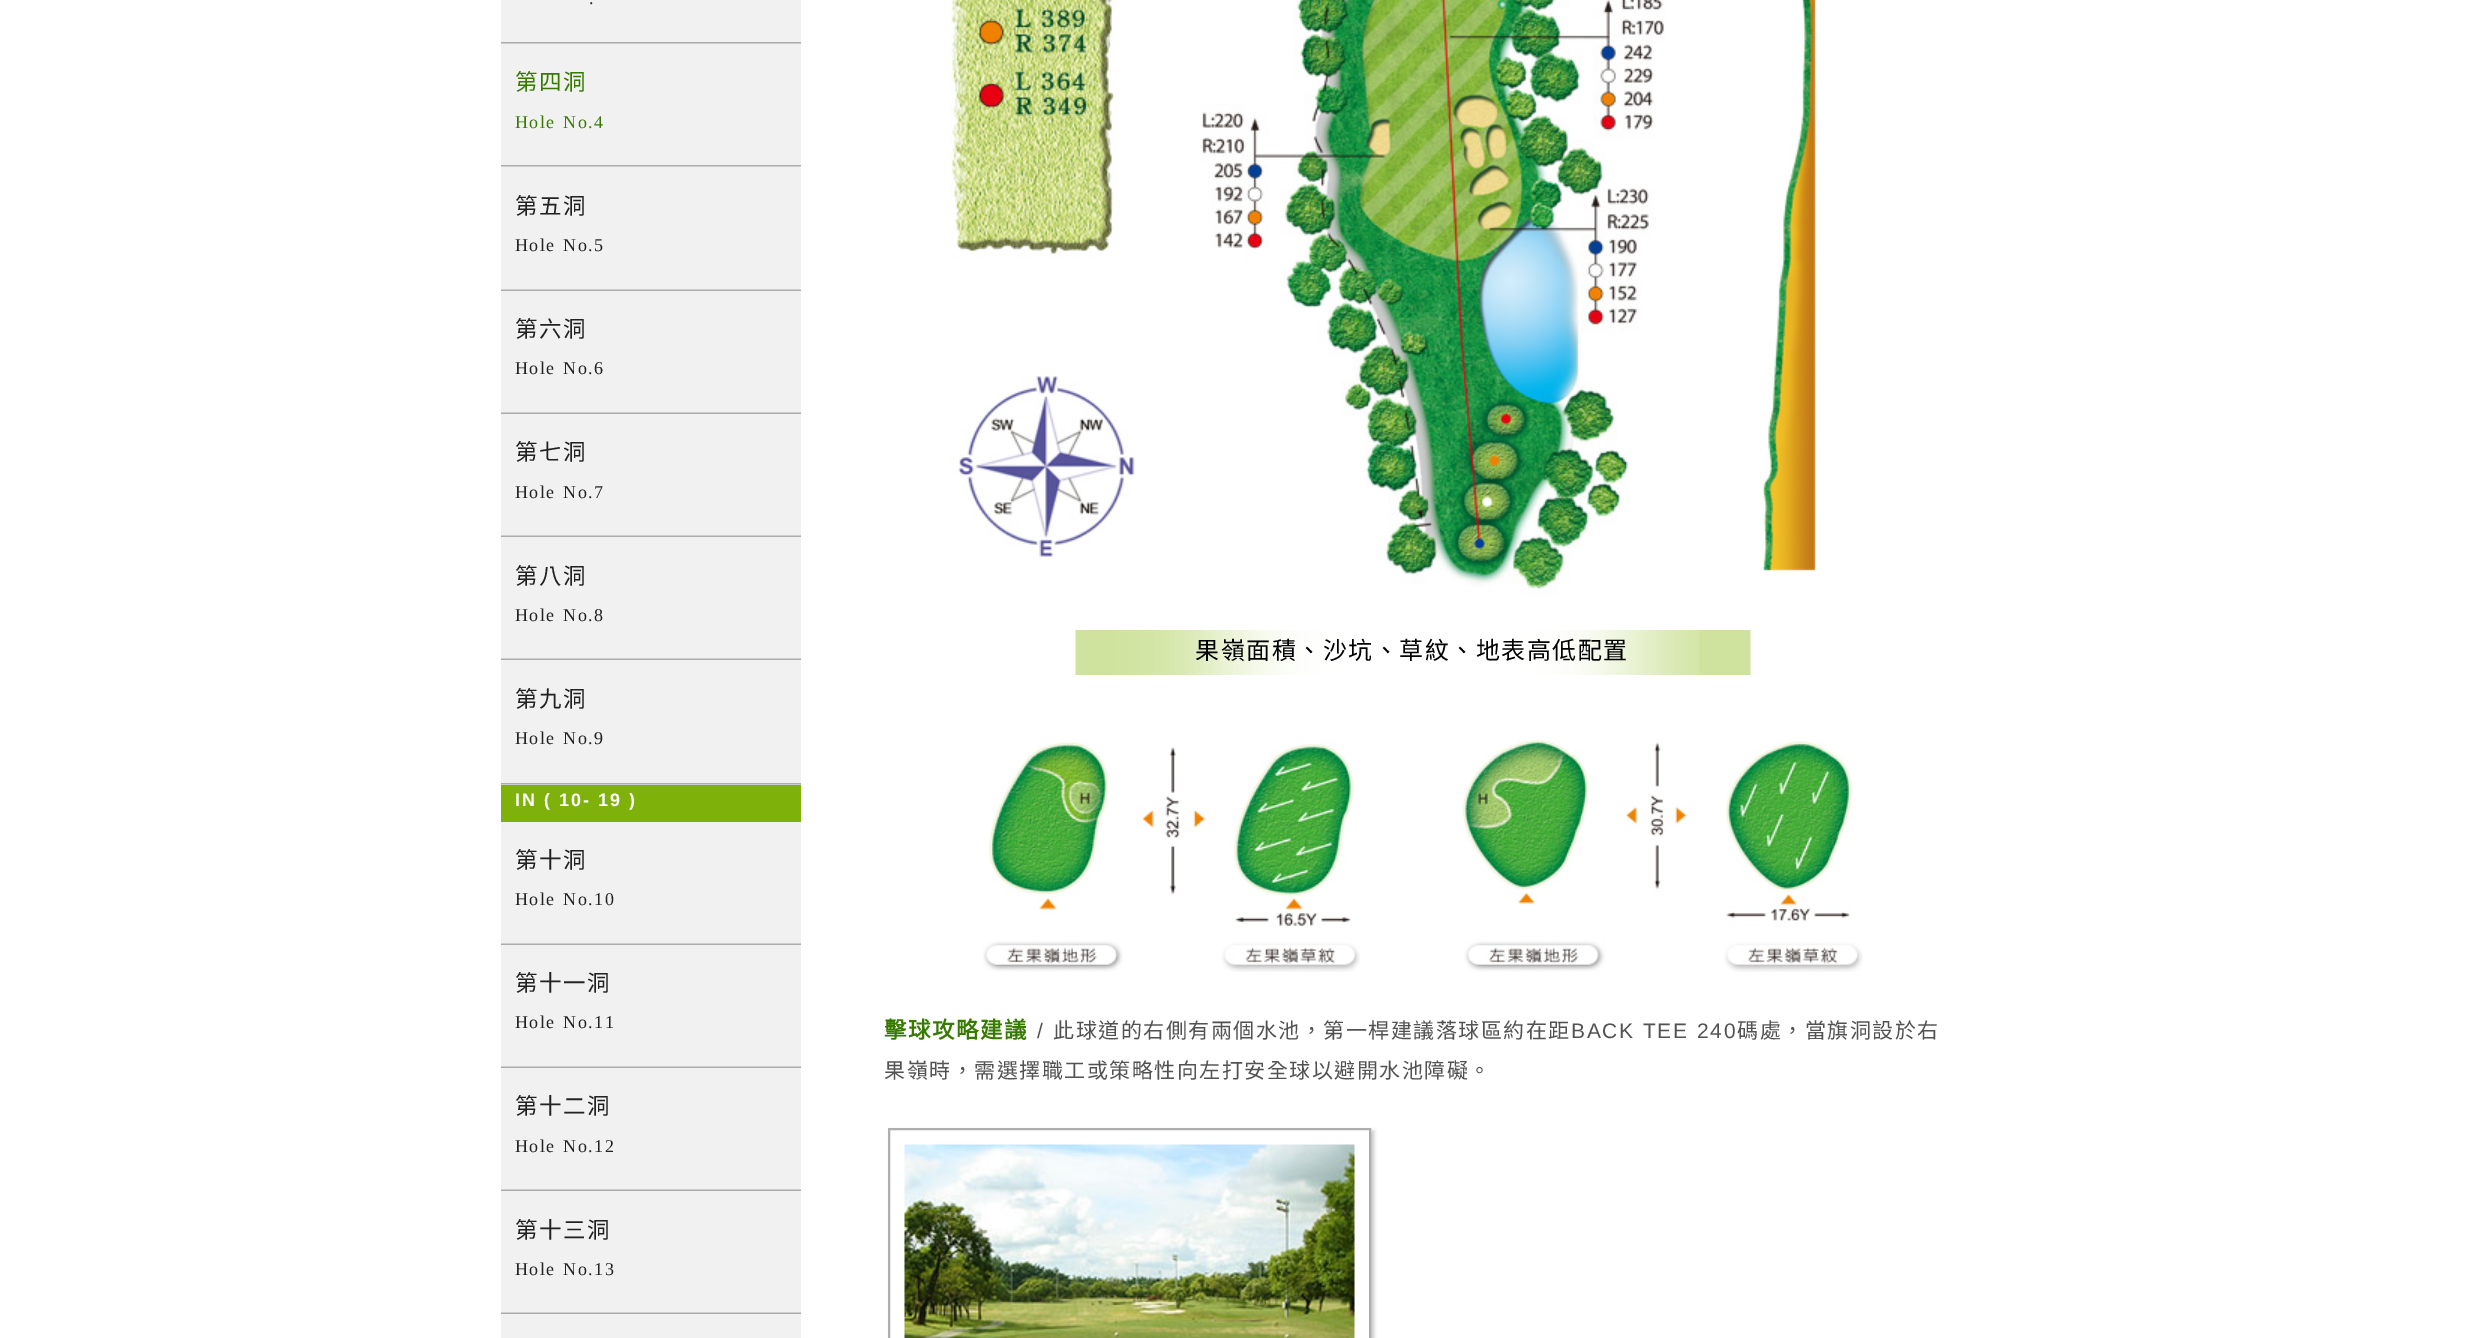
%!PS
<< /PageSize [2478 1338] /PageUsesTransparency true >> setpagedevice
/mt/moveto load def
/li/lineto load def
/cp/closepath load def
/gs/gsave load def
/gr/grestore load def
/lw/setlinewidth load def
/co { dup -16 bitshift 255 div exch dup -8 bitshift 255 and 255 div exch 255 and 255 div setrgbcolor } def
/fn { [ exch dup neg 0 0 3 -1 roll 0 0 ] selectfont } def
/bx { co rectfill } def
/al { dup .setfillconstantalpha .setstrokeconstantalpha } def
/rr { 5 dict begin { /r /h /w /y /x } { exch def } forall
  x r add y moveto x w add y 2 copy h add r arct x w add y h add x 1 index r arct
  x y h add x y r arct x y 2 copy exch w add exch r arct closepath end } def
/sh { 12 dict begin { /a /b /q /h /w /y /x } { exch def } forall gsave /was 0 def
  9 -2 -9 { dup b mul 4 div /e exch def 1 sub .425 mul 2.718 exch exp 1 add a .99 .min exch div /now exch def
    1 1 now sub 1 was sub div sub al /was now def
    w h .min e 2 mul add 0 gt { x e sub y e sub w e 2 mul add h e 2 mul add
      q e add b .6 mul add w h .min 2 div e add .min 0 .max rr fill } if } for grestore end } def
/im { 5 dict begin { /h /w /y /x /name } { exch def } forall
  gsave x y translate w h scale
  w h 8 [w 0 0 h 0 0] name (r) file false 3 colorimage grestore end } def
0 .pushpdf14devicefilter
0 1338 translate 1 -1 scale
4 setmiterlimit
0 0 2478 1338 16#FFFFFF bx
501 0 300 290 16#F1F1F1 bx
(media/1.raw) 501 42 300 2 im
(media/1.raw) 501 165 300 2 im
(media/2.raw) 501 289 300 2 im
501 291 300 122 16#F1F1F1 bx
(media/2.raw) 501 412 300 2 im
501 414 300 122 16#F1F1F1 bx
(media/2.raw) 501 535 300 2 im
501 537 300 122 16#F1F1F1 bx
(media/2.raw) 501 658 300 2 im
501 660 300 125 16#F1F1F1 bx
(media/1.raw) 501 783 300 2 im
501 785 300 37 16#7EB10A bx
501 822 300 122 16#F1F1F1 bx
(media/2.raw) 501 943 300 2 im
501 945 300 122 16#F1F1F1 bx
(media/2.raw) 501 1066 300 2 im
501 1068 300 122 16#F1F1F1 bx
(media/2.raw) 501 1189 300 2 im
501 1191 300 122 16#F1F1F1 bx
(media/2.raw) 501 1312 300 2 im
501 1314 300 24 16#F1F1F1 bx
(media/3.raw) 950 0 187 557 im
(media/4.raw) 1200 0 465 596 im
(media/5.raw) 1762 0 54 571 im
(media/6.raw) 1075 630 676 45 im
(media/7.raw) 983 740 377 232 im
(media/8.raw) 1462 740 401 232 im
gs
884 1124 mt 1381 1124 li 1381 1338 li 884 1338 li cp 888 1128 mt 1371 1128 li 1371 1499 li 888 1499 li cp eoclip newpath
16#C6C6C6 co
891 1131 483 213 0 2 1 sh
gr
16#AEAEAE co
2 lw
889 1129 481 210 rectstroke
(media/9.raw) 904 1144 451 194 im
/LiberationSerif-Regular 18 fn
16#222222 co
589 4 mt 1.5 0 32 1.5 0 (.) awidthshow
/NotoSansCJKTC-Regular 22.5 fn
16#377A00 co
515 90 mt 1.5 0 (第四洞) ashow
/LiberationSerif-Regular 18 fn
515 128 mt 1.5 0 32 1.5 0 (Hole No.4) awidthshow
/NotoSansCJKTC-Regular 22.5 fn
16#222222 co
515 214 mt 1.5 0 (第五洞) ashow
/LiberationSerif-Regular 18 fn
515 251 mt 1.5 0 32 1.5 0 (Hole No.5) awidthshow
/NotoSansCJKTC-Regular 22.5 fn
515 337 mt 1.5 0 (第六洞) ashow
/LiberationSerif-Regular 18 fn
515 374 mt 1.5 0 32 1.5 0 (Hole No.6) awidthshow
/NotoSansCJKTC-Regular 22.5 fn
515 460 mt 1.5 0 (第七洞) ashow
/LiberationSerif-Regular 18 fn
515 498 mt 1.5 0 32 1.5 0 (Hole No.7) awidthshow
/NotoSansCJKTC-Regular 22.5 fn
515 584 mt 1.5 0 (第八洞) ashow
/LiberationSerif-Regular 18 fn
515 621 mt 1.5 0 32 1.5 0 (Hole No.8) awidthshow
/NotoSansCJKTC-Regular 22.5 fn
515 707 mt 1.5 0 (第九洞) ashow
/LiberationSerif-Regular 18 fn
515 744 mt 1.5 0 32 1.5 0 (Hole No.9) awidthshow
/LiberationSans-Bold 18 fn
16#FFFFFF co
515 806 mt 1.5 0 32 1.5 0 (IN \( 10- 19 \)) awidthshow
/NotoSansCJKTC-Regular 22.5 fn
16#222222 co
515 868 mt 1.5 0 (第十洞) ashow
/LiberationSerif-Regular 18 fn
515 905 mt 1.5 0 32 1.5 0 (Hole No.10) awidthshow
/NotoSansCJKTC-Regular 22.5 fn
515 991 mt 1.5 0 (第十一洞) ashow
/LiberationSerif-Regular 18 fn
515 1028 mt 1.5 0 32 1.5 0 (Hole No.11) awidthshow
/NotoSansCJKTC-Regular 22.5 fn
515 1114 mt 1.5 0 (第十二洞) ashow
/LiberationSerif-Regular 18 fn
515 1152 mt 1.5 0 32 1.5 0 (Hole No.12) awidthshow
/NotoSansCJKTC-Regular 22.5 fn
515 1238 mt 1.5 0 (第十三洞) ashow
/LiberationSerif-Regular 18 fn
515 1275 mt 1.5 0 32 1.5 0 (Hole No.13) awidthshow
/NotoSansCJKTC-Regular 24 fn
16#000000 co
1195 659 mt 1.5 0 (果嶺面積、沙坑、草紋、地表高低配置) ashow
/NotoSansCJKTC-Bold 22.5 fn
16#377A00 co
884 1038 mt 1.5 0 (擊球攻略建議) ashow
/LiberationSans-Regular 21 fn
16#525252 co
1037 1038 mt 1.5 0 (/) ashow
/NotoSansCJKTC-Regular 21 fn
1053 1038 mt 1.5 0 (此球道的右側有兩個水池，第一桿建議落球區約在距) ashow
/LiberationSans-Regular 21 fn
1571 1038 mt 1.5 0 32 1.5 0 (BACK TEE 240) awidthshow
/NotoSansCJKTC-Regular 21 fn
1737 1038 mt 1.5 0 (碼處，當旗洞設於右) ashow
884 1078 mt 1.5 0 (果嶺時，需選擇職工或策略性向左打安全球以避開水池障礙。) ashow
.poppdf14devicefilter showpage
